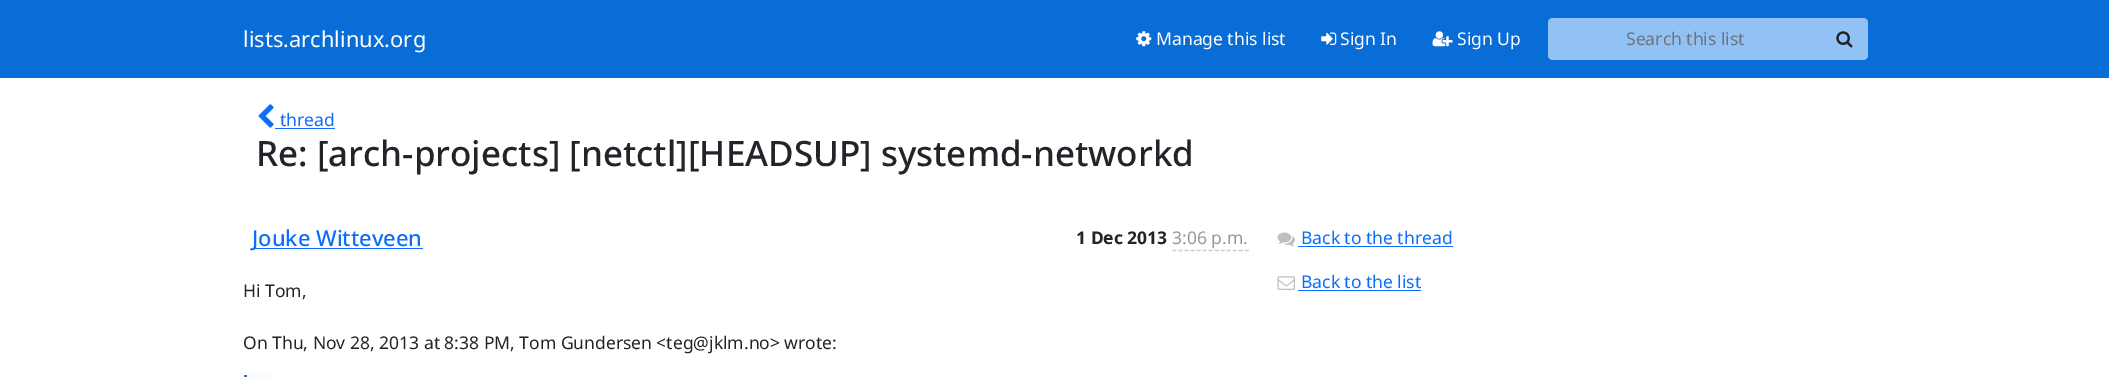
%!PS
<< /PageSize [2109 377] >> setpagedevice
/mt/moveto load def
/li/lineto load def
/ct/curveto load def
/cp/closepath load def
/fl/fill load def
/st/stroke load def
/lw/setlinewidth load def
/co { dup -16 bitshift 255 div exch dup -8 bitshift 255 and 255 div exch 255 and 255 div setrgbcolor } def
/fn { [ exch dup neg 0 0 3 -1 roll 0 0 ] selectfont } def
/tx { co fn moveto show } def
/bx { co rectfill } def
/im { 5 dict begin { /h /w /y /x /name } { exch def } forall
  gsave x y translate w h scale
  w h 8 [w 0 0 h 0 0] name (r) file false 3 colorimage grestore end } def
0 377 translate 1 -1 scale
4 setmiterlimit
0 0 2109 377 16#FFFFFF bx
0 0 2109 78 16#086DD7 bx
(media/1.raw) 1136 31 16 16 im
(media/2.raw) 1321 32 16 13 im
(media/3.raw) 1432 31 21 16 im
16#92C2F5 co
1553 18 mt 1824 18 li 1824 60 li 1553 60 li 1550 60 1548 58 1548 55 ct 1548 23 li 1548 20 1550 18 1553 18 ct cp fl
1823 18 mt 1863 18 li 1866 18 1868 20 1868 23 ct 1868 55 li 1868 58 1866 60 1863 60 ct 1823 60 li cp fl
(media/4.raw) 1836 31 17 17 im
(media/5.raw) 258 104 16 24 im
275 128 60 1 16#0D6EFD bx
253 248 170 1 16#0D6EFD bx
16#CCCCCC co
1.2 lw
[3.75 2.29] 0 setdash
1172.5 250.5 mt 1249 250.5 li st
244 375 29 2 16#FAFAFA bx
244 375 3 2 16#3771C8 bx
(media/6.raw) 1277 232 18 15 im
1298 246 155 1 16#0D6EFD bx
(media/7.raw) 1277 276 18 14 im
1298 290 123 1 16#0D6EFD bx
(lists.archlinux.org) 243 47 /NotoSans-Regular 21.9 16#FFFFFF tx
(Manage this list) 1156 45 /NotoSans-Regular 17.5 16#FFFFFF tx
(Sign In) 1340 45 /NotoSans-Regular 17.5 16#FFFFFF tx
(Sign Up) 1457 45 /NotoSans-Regular 17.5 16#FFFFFF tx
(Search this list) 1626 45 /NotoSans-Regular 17.5 16#6C757D tx
(thread) 280 126 /NotoSans-Regular 17.5 16#0D6EFD tx
(Re: [arch-projects] [netctl][HEADSUP] systemd-networkd) 256 166 /NotoSans-Medium 35 16#212529 tx
(Jouke Witteveen) 252 246 /NotoSans-Medium 21.9 16#0D6EFD tx
(1 Dec 2013) 1076 244 /NotoSans-Bold 17.5 16#212529 tx
(3:06 p.m.) 1172 244 /NotoSans-Regular 17.5 16#999999 tx
(Hi Tom,) 243 297 /NotoSans-Regular 17.5 16#212529 tx
(On Thu, Nov 28, 2013 at 8:38 PM, Tom Gundersen <teg@jklm.no> wrote:) 243 349 /NotoSans-Regular 17.5 16#212529 tx
(Back to the thread) 1301 244 /NotoSans-Regular 17.5 16#0D6EFD tx
(Back to the list) 1301 288 /NotoSans-Regular 17.5 16#0D6EFD tx
showpage
